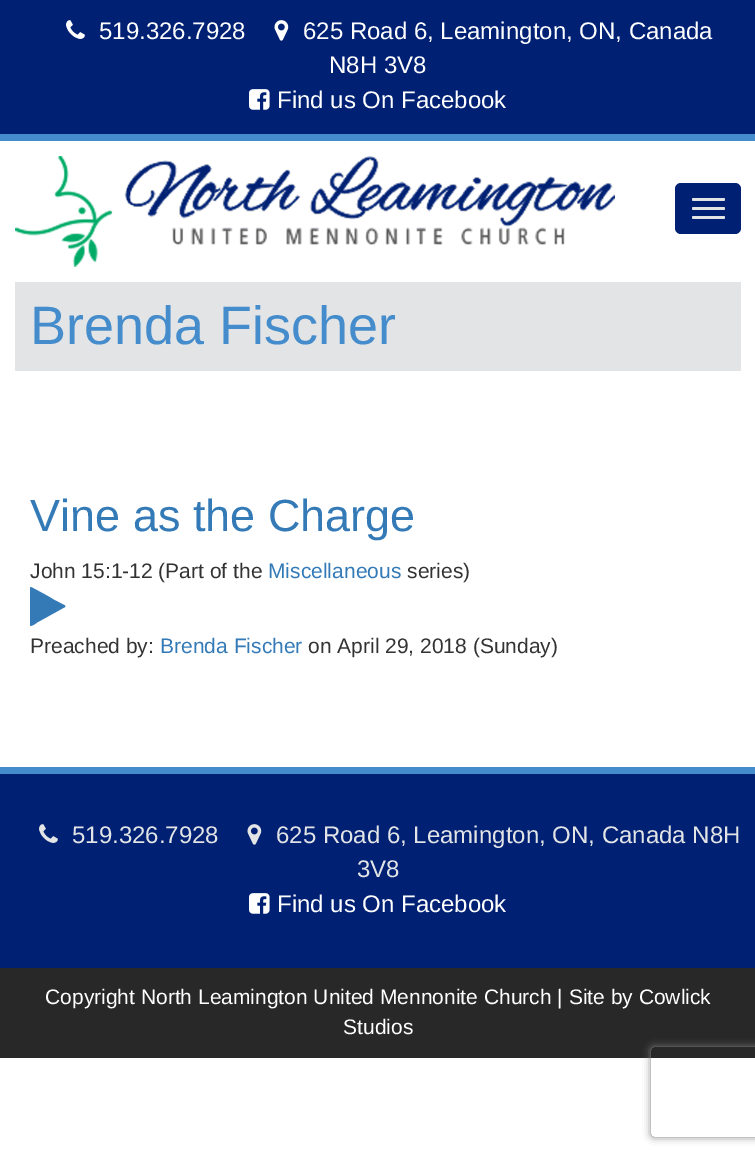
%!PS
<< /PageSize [755 1158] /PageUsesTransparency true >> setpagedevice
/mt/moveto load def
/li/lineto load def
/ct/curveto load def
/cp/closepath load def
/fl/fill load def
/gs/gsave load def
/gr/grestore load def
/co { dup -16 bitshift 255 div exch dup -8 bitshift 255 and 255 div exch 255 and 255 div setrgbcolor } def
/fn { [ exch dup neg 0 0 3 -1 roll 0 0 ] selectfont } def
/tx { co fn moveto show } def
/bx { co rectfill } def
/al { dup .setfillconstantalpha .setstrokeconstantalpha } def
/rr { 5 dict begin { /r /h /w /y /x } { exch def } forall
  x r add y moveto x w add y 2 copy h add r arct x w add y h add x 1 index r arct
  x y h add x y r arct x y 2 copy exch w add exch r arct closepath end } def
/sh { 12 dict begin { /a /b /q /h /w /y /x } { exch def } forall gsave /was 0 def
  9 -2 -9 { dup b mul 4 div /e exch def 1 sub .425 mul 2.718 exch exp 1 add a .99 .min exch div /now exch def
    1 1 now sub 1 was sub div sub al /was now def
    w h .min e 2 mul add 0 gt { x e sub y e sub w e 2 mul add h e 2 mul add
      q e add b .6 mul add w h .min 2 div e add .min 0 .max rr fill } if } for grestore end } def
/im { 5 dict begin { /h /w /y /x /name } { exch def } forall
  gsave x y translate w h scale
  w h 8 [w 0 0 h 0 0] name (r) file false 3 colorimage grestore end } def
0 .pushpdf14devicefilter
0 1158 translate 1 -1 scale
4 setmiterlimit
0 0 755 1158 16#FFFFFF bx
0 0 755 134 16#002173 bx
0 134 755 7 16#448CCB bx
(media/1.raw) 66 20 19 19 im
(media/2.raw) 274 20 15 21 im
(media/3.raw) 249 89 21 21 im
(media/4.raw) 15 156 600 111 im
16#002173 co
675 183 66 51 6 rr fl
16#E2E4E6 co
692 198 33 3 1.5 rr fl
692 207 33 3 1.5 rr fl
692 216 33 3 1.5 rr fl
15 282 726 89 16#E2E4E6 bx
16#337AB7 co
65 607 mt 37 622.5 li 36.5 623 31 627 30 625.5 ct 30 587.5 li 30.5 587 li 31.5 587 51.5 598 53.5 599.5 ct 65 605.5 li 65.5 606.5 li cp fl
0 774 755 194 16#002173 bx
0 767 755 7 16#448CCB bx
(media/5.raw) 39 824 19 19 im
(media/6.raw) 247 824 15 21 im
(media/3.raw) 249 893 21 21 im
0 968 755 90 16#282828 bx
gs
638 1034 mt 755 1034 li 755 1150 li 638 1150 li cp 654 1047 mt 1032 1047 li 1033.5 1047 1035 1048.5 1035 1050 ct 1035 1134 li 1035 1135.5 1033.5 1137 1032 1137 ct 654 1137 li 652.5 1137 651 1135.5 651 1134 ct 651 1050 li 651 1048.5 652.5 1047 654 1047 ct cp eoclip newpath
16#808080 co
651 1047 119 90 3 4 1 sh
gr
(519.326.7928) 99 39 /LiberationSans-Regular 24 16#FFFFFF tx
(625 Road 6, Leamington, ON, Canada) 303 39 /LiberationSans-Regular 24 16#FFFFFF tx
(N8H 3V8) 329 73 /LiberationSans-Regular 24 16#FFFFFF tx
(Find us On Facebook) 277 108 /LiberationSans-Regular 24 16#FFFFFF tx
(Brenda Fischer) 30 344 /LiberationSans-Regular 54 16#448CCB tx
(Vine as the Charge) 30 531 /LiberationSans-Regular 45 16#337AB7 tx
(John 15:1-12 \(Part of the) 30 578 /LiberationSans-Regular 21 16#333333 tx
(Miscellaneous) 268 578 /LiberationSans-Regular 21 16#337AB7 tx
(series\)) 407 578 /LiberationSans-Regular 21 16#333333 tx
(Preached by:) 30 653 /LiberationSans-Regular 21 16#333333 tx
(Brenda Fischer) 160 653 /LiberationSans-Regular 21 16#337AB7 tx
(on April 29, 2018 \(Sunday\)) 308 653 /LiberationSans-Regular 21 16#333333 tx
(519.326.7928) 72 843 /LiberationSans-Regular 24 16#E2E4E6 tx
(625 Road 6, Leamington, ON, Canada N8H) 276 843 /LiberationSans-Regular 24 16#E2E4E6 tx
(3V8) 357 877 /LiberationSans-Regular 24 16#E2E4E6 tx
(Find us On Facebook) 277 912 /LiberationSans-Regular 24 16#FFFFFF tx
(Copyright North Leamington United Mennonite Church | Site by Cowlick) 45 1004 /LiberationSans-Regular 21 16#FFFFFF tx
(Studios) 343 1034 /LiberationSans-Regular 21 16#FFFFFF tx
.poppdf14devicefilter showpage
